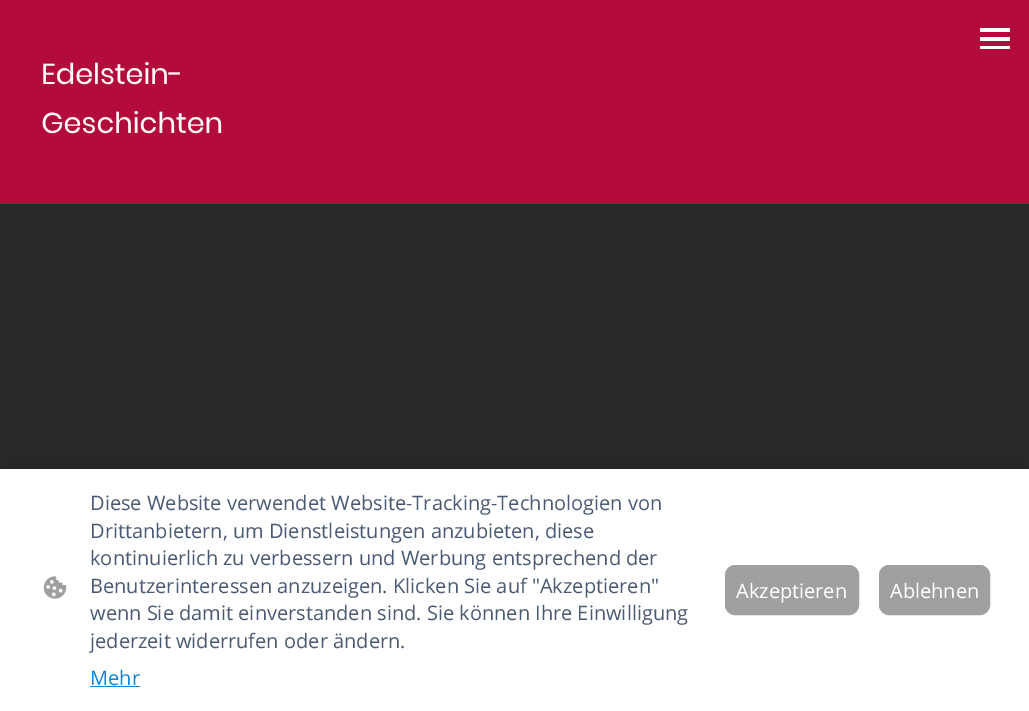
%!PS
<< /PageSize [1029 711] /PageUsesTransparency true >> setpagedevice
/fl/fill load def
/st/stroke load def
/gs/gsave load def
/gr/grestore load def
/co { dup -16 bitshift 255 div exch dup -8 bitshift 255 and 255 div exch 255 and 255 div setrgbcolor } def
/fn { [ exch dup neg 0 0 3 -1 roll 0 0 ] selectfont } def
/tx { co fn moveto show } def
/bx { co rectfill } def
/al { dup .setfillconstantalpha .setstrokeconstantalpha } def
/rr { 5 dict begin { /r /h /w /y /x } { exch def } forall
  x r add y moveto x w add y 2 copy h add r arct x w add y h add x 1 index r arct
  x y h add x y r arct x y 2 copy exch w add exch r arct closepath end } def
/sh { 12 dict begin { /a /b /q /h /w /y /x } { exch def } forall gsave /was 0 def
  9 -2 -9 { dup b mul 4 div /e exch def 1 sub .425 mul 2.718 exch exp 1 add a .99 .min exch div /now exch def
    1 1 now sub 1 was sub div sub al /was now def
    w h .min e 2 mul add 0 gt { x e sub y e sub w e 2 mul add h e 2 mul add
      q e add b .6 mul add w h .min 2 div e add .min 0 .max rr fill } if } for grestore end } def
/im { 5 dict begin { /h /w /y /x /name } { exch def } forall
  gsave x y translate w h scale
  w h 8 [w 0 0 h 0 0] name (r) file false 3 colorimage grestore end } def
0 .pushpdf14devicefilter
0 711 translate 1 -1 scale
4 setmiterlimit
0 0 1029 711 16#B30C3C bx
980 28 30 4 16#FFFDF9 bx
980 37 30 4 16#FFFDF9 bx
980 46 30 3 16#FFFDF9 bx
(media/1.raw) 42 62 180 72 im
0 204 1029 265 16#282828 bx
16#000000 co
8 473 1015 227 0 5 .63 sh
0 469 1029 242 16#FFFFFF bx
(media/2.raw) 43 576 24 23 im
90 686 50 1 16#1183D1 bx
16#A0A0A0 co
725.5 565.5 133 49 9.5 rr gs fl gr
st
879.5 565.5 110 49 9.5 rr gs fl gr
st
(Diese Website verwendet Website-Tracking-Technologien von) 90 510 /OpenSans-Regular 20 16#4A5A73 tx
(Drittanbietern, um Dienstleistungen anzubieten, diese) 90 538 /OpenSans-Regular 20 16#4A5A73 tx
(kontinuierlich zu verbessern und Werbung entsprechend der) 90 565 /OpenSans-Regular 20 16#4A5A73 tx
(Benutzerinteressen anzuzeigen. Klicken Sie auf "Akzeptieren") 90 593 /OpenSans-Regular 20 16#4A5A73 tx
(wenn Sie damit einverstanden sind. Sie können Ihre Einwilligung) 90 620 /OpenSans-Regular 20 16#4A5A73 tx
(jederzeit widerrufen oder ändern.) 90 648 /OpenSans-Regular 20 16#4A5A73 tx
(Mehr) 90 685 /OpenSans-Regular 20 16#1183D1 tx
(Akzeptieren) 736 598 /OpenSans-Regular 20 16#FFFFFF tx
(Ablehnen) 890 598 /OpenSans-Regular 20 16#FFFFFF tx
.poppdf14devicefilter showpage
